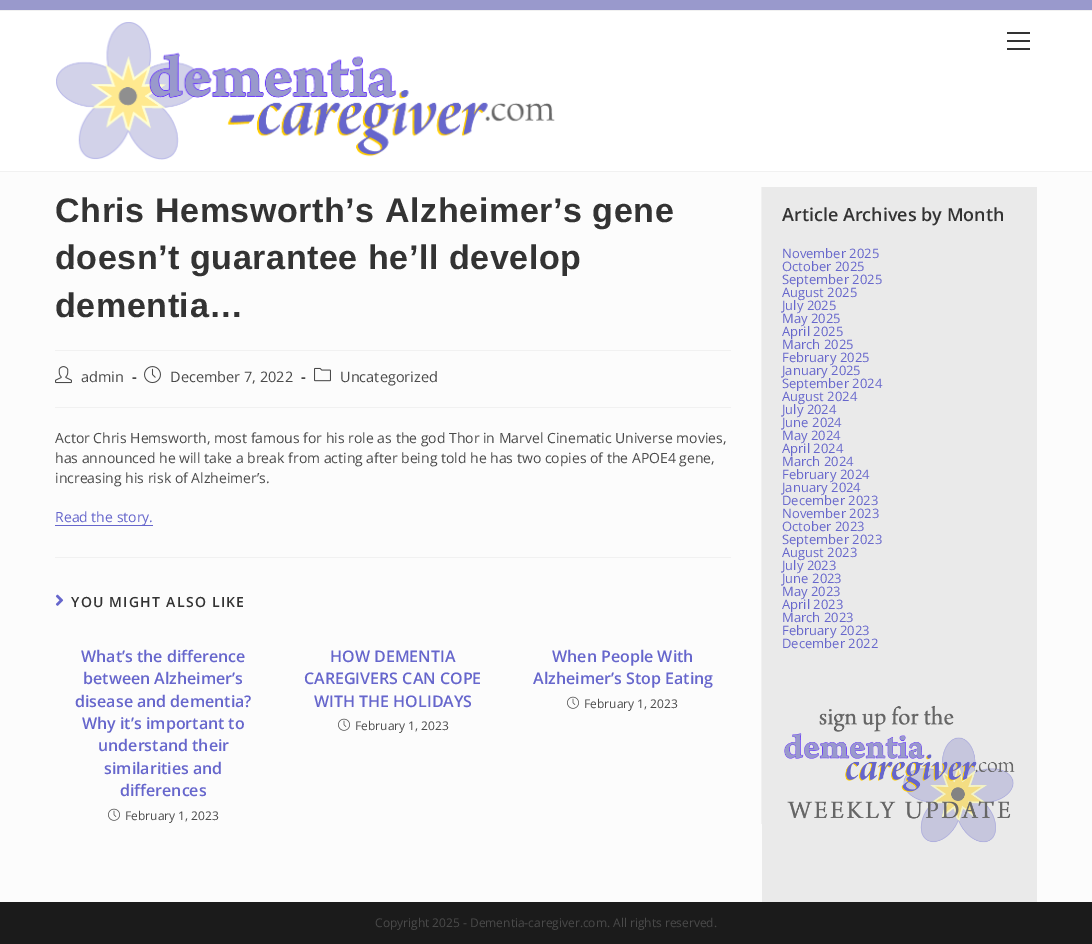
%!PS
<< /PageSize [1092 944] >> setpagedevice
/mt/moveto load def
/co { dup -16 bitshift 255 div exch dup -8 bitshift 255 and 255 div exch 255 and 255 div setrgbcolor } def
/fn { [ exch dup neg 0 0 3 -1 roll 0 0 ] selectfont } def
/tx { co fn moveto show } def
/bx { co rectfill } def
/im { 5 dict begin { /h /w /y /x /name } { exch def } forall
  gsave x y translate w h scale
  w h 8 [w 0 0 h 0 0] name (r) file false 3 colorimage grestore end } def
0 944 translate 1 -1 scale
4 setmiterlimit
0 0 1092 944 16#FCFCFC bx
0 0 1092 10 16#9999CC bx
0 10 1092 1 16#F1F1F1 bx
0 11 1092 160 16#FFFFFF bx
0 171 1092 1 16#F1F1F1 bx
(media/1.raw) 56 22 499 138 im
1007 40 23 2 16#333333 bx
1007 32 23 2 16#333333 bx
1007 48 23 2 16#333333 bx
761 187 1 637 16#F1F1F1 bx
55 350 676 1 16#F1F1F1 bx
55 407 676 1 16#F1F1F1 bx
(media/2.raw) 55 366 17 18 im
(media/3.raw) 144 366 17 18 im
(media/4.raw) 314 367 17 15 im
55 525 98 1 16#6666CC bx
55 557 676 1 16#F1F1F1 bx
(media/5.raw) 55 594 9 12 im
(media/6.raw) 108 808 12 13 im
(media/6.raw) 338 718 12 13 im
(media/6.raw) 567 696 12 13 im
762 187 275 715 16#EAEAEA bx
(media/7.raw) 784 705 231 138 im
0 902 1092 42 16#1B1B1B bx
/LiberationSans-Bold 34 fn
16#333333 co
55 222 mt .6 0 (Chris Hemsworth’s Alzheimer’s gene) ashow
55 269 mt .6 0 (doesn’t guarantee he’ll develop) ashow
55 317 mt .6 0 (dementia…) ashow
(admin) 81 382 /OpenSans-Regular 14.5 16#4A4A4A tx
(-) 132 382 /OpenSans-Bold 14.5 16#4A4A4A tx
(December 7, 2022) 170 382 /OpenSans-Regular 14.5 16#4A4A4A tx
(-) 301 382 /OpenSans-Bold 14.5 16#4A4A4A tx
(Uncategorized) 340 382 /OpenSans-Regular 14.5 16#4A4A4A tx
(Actor Chris Hemsworth, most famous for his role as the god Thor in Marvel Cinematic Universe movies,) 55 443 /OpenSans-Regular 14 16#4A4A4A tx
(has announced he will take a break from acting after being told he has two copies of the APOE4 gene,) 55 463 /OpenSans-Regular 14 16#4A4A4A tx
(increasing his risk of Alzheimer’s.) 55 483 /OpenSans-Regular 14 16#4A4A4A tx
(Read the story.) 55 522 /OpenSans-Regular 14 16#6666CC tx
/OpenSans-SemiBold 14 fn
16#333333 co
71 607 mt 1.25 0 (YOU MIGHT ALSO LIKE) ashow
(What’s the difference) 81 662 /OpenSans-SemiBold 16 16#6666CC tx
(between Alzheimer’s) 83 684 /OpenSans-SemiBold 16 16#6666CC tx
(disease and dementia?) 75 707 /OpenSans-SemiBold 16 16#6666CC tx
(Why it’s important to) 82 729 /OpenSans-SemiBold 16 16#6666CC tx
(understand their) 98 751 /OpenSans-SemiBold 16 16#6666CC tx
(similarities and) 104 774 /OpenSans-SemiBold 16 16#6666CC tx
(differences) 120 796 /OpenSans-SemiBold 16 16#6666CC tx
(February 1, 2023) 125 820 /OpenSans-Regular 12 16#4A4A4A tx
(HOW DEMENTIA) 330 662 /OpenSans-SemiBold 16 16#6666CC tx
(CAREGIVERS CAN COPE) 304 684 /OpenSans-SemiBold 16 16#6666CC tx
(WITH THE HOLIDAYS) 314 707 /OpenSans-SemiBold 16 16#6666CC tx
(February 1, 2023) 355 730 /OpenSans-Regular 12 16#4A4A4A tx
(When People With) 552 662 /OpenSans-SemiBold 16 16#6666CC tx
(Alzheimer’s Stop Eating) 533 684 /OpenSans-SemiBold 16 16#6666CC tx
(February 1, 2023) 584 708 /OpenSans-Regular 12 16#4A4A4A tx
(Article Archives by Month) 782 221 /OpenSans-SemiBold 18 16#333333 tx
(November 2025) 782 258 /OpenSans-Regular 13 16#6666CC tx
(October 2025) 782 271 /OpenSans-Regular 13 16#6666CC tx
(September 2025) 782 284 /OpenSans-Regular 13 16#6666CC tx
(August 2025) 782 297 /OpenSans-Regular 13 16#6666CC tx
(July 2025) 782 310 /OpenSans-Regular 13 16#6666CC tx
(May 2025) 782 323 /OpenSans-Regular 13 16#6666CC tx
(April 2025) 782 336 /OpenSans-Regular 13 16#6666CC tx
(March 2025) 782 349 /OpenSans-Regular 13 16#6666CC tx
(February 2025) 782 362 /OpenSans-Regular 13 16#6666CC tx
(January 2025) 782 375 /OpenSans-Regular 13 16#6666CC tx
(September 2024) 782 388 /OpenSans-Regular 13 16#6666CC tx
(August 2024) 782 401 /OpenSans-Regular 13 16#6666CC tx
(July 2024) 782 414 /OpenSans-Regular 13 16#6666CC tx
(June 2024) 782 427 /OpenSans-Regular 13 16#6666CC tx
(May 2024) 782 440 /OpenSans-Regular 13 16#6666CC tx
(April 2024) 782 453 /OpenSans-Regular 13 16#6666CC tx
(March 2024) 782 466 /OpenSans-Regular 13 16#6666CC tx
(February 2024) 782 479 /OpenSans-Regular 13 16#6666CC tx
(January 2024) 782 492 /OpenSans-Regular 13 16#6666CC tx
(December 2023) 782 505 /OpenSans-Regular 13 16#6666CC tx
(November 2023) 782 518 /OpenSans-Regular 13 16#6666CC tx
(October 2023) 782 531 /OpenSans-Regular 13 16#6666CC tx
(September 2023) 782 544 /OpenSans-Regular 13 16#6666CC tx
(August 2023) 782 557 /OpenSans-Regular 13 16#6666CC tx
(July 2023) 782 570 /OpenSans-Regular 13 16#6666CC tx
(June 2023) 782 583 /OpenSans-Regular 13 16#6666CC tx
(May 2023) 782 596 /OpenSans-Regular 13 16#6666CC tx
(April 2023) 782 609 /OpenSans-Regular 13 16#6666CC tx
(March 2023) 782 622 /OpenSans-Regular 13 16#6666CC tx
(February 2023) 782 635 /OpenSans-Regular 13 16#6666CC tx
(December 2022) 782 648 /OpenSans-Regular 13 16#6666CC tx
(Copyright 2025 - Dementia-caregiver.com. All rights reserved.) 375 927 /OpenSans-Regular 12 16#4A4A4A tx
showpage
